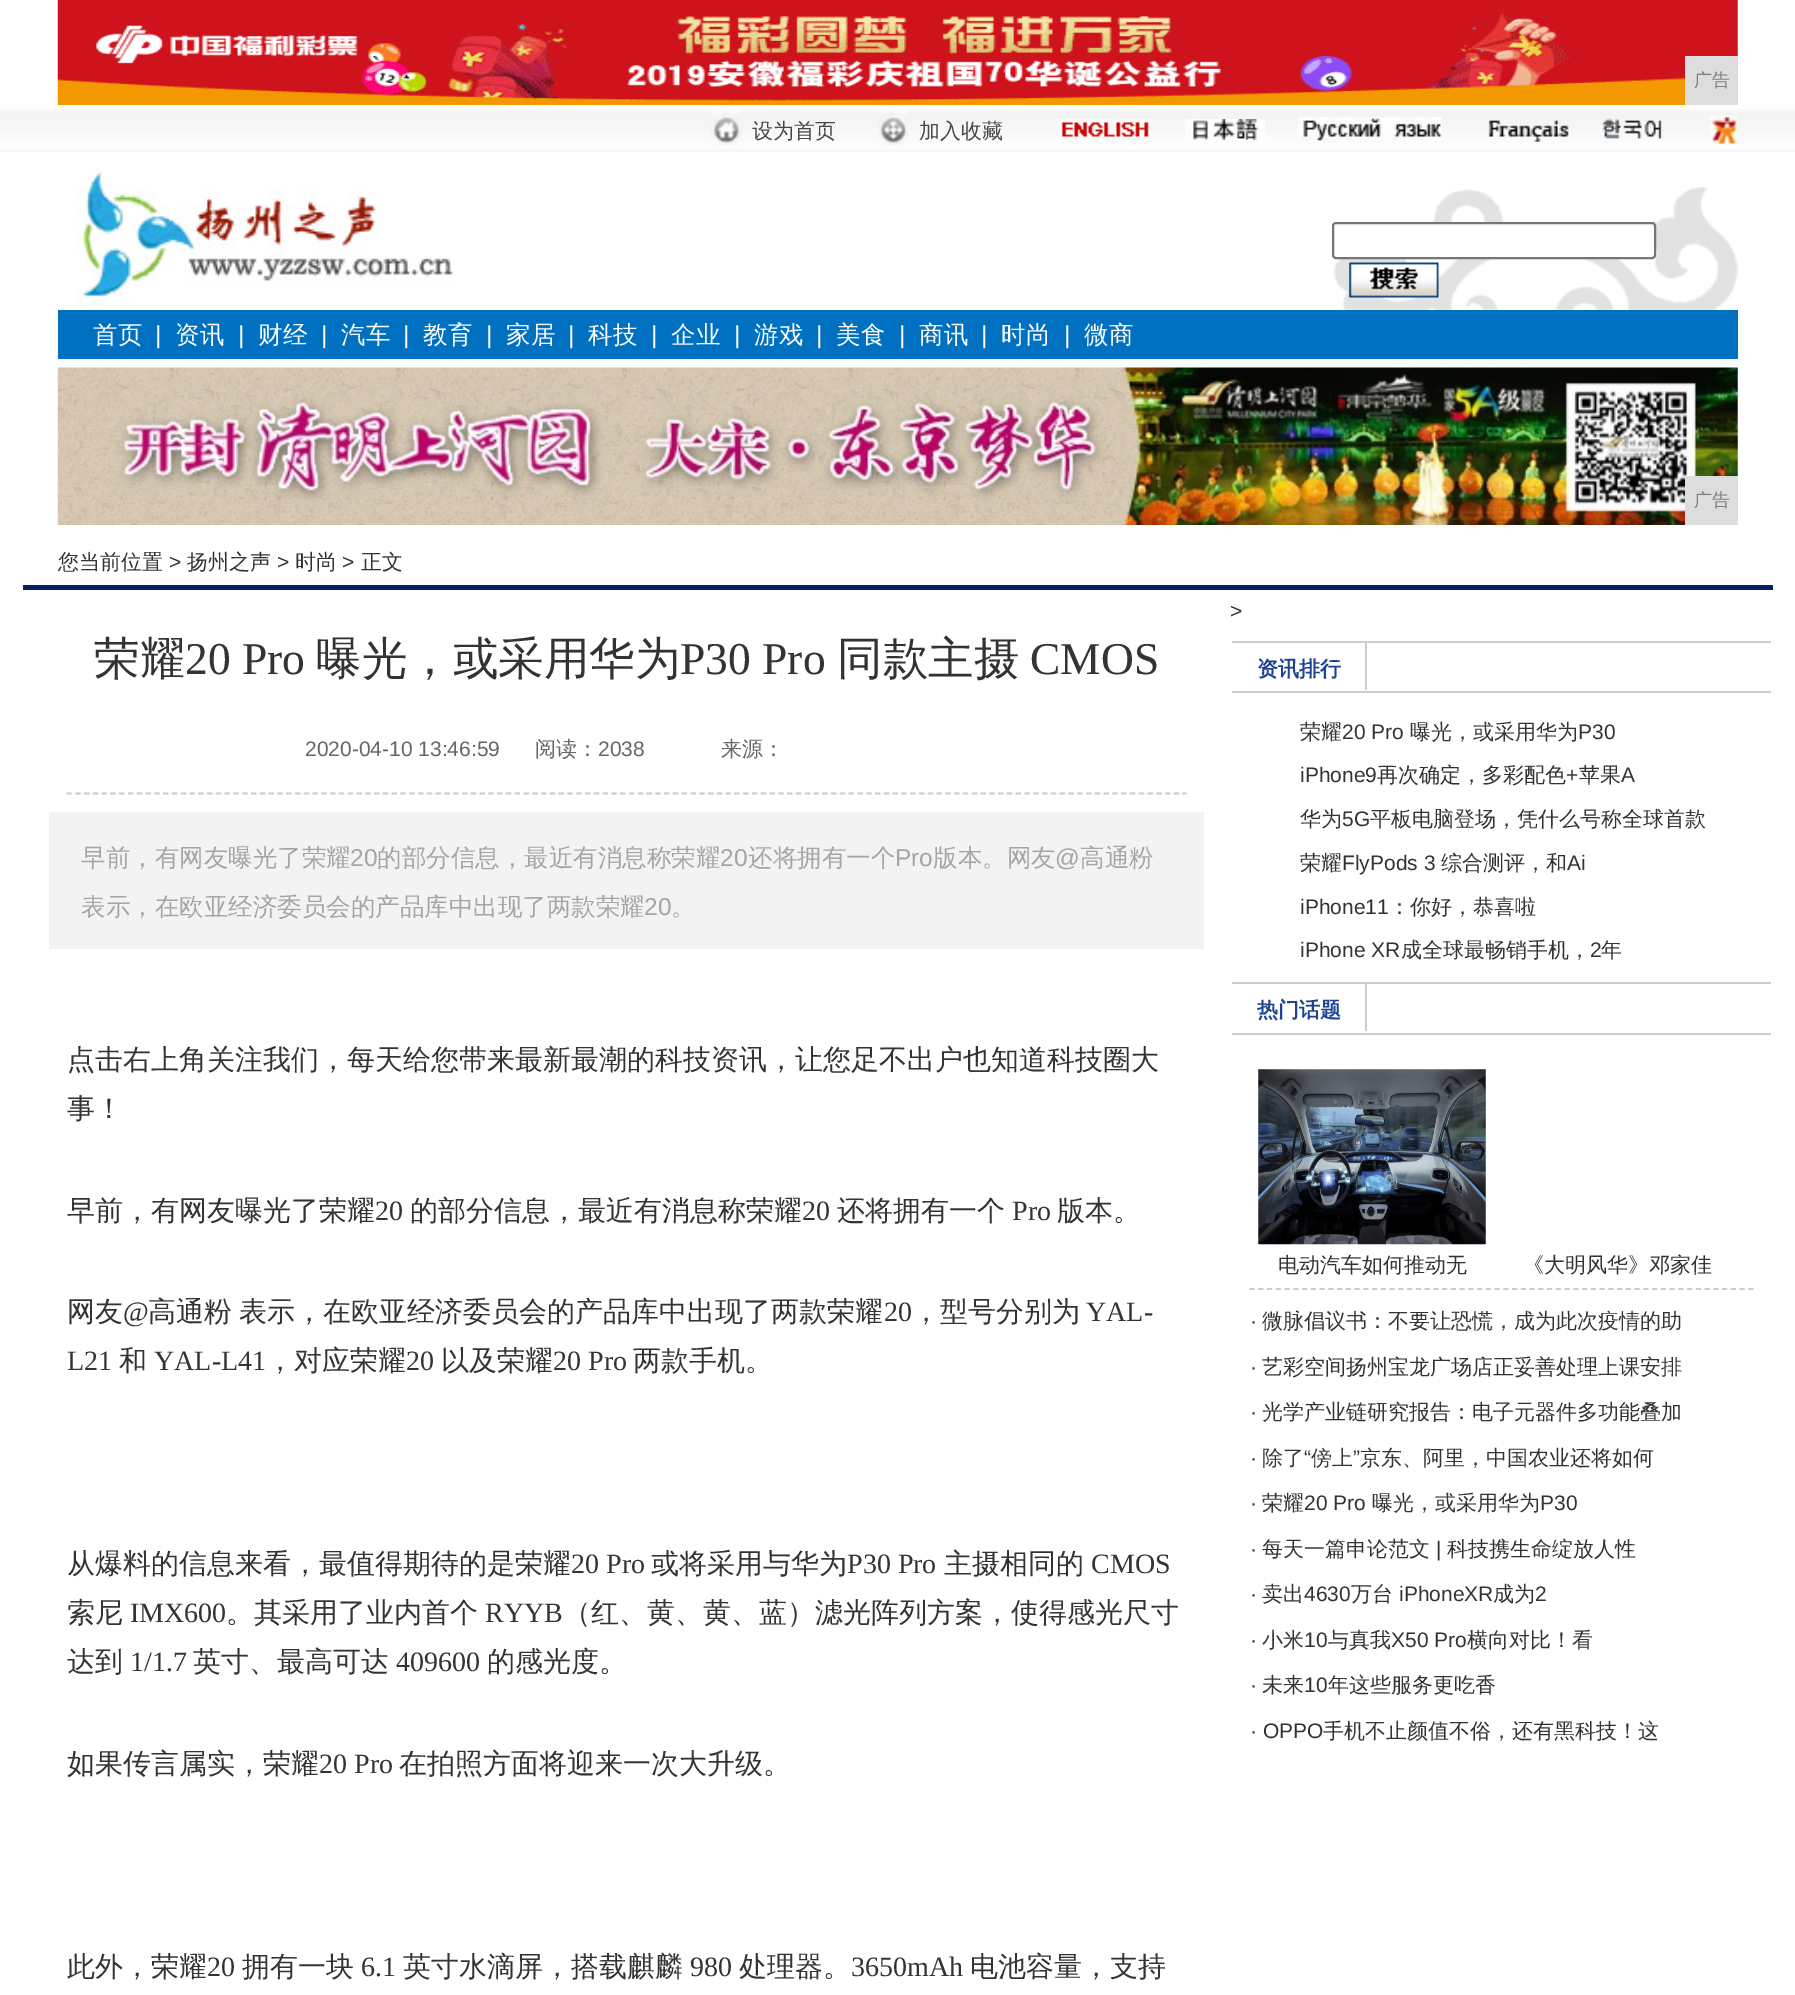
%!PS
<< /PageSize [1795 1995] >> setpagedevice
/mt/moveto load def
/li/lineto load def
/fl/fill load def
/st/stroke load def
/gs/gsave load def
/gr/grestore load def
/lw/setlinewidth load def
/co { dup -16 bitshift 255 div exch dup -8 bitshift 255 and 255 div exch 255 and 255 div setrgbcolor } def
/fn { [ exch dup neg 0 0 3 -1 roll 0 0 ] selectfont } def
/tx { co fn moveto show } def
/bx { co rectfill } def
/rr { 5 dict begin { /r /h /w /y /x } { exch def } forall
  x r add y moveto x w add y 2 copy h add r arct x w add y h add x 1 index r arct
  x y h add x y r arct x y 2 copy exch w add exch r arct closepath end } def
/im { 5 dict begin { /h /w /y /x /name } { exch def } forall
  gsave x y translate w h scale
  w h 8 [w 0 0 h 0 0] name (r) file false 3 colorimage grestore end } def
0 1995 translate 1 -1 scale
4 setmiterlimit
0 0 1795 1995 16#FFFFFF bx
(media/1.raw) 57 0 1681 105 im
1685 56 53 49 16#DDDDDD bx
(media/2.raw) 0 109 1795 43 im
(media/3.raw) 710 109 32 37 im
(media/4.raw) 878 109 30 37 im
(media/5.raw) 1057 119 95 21 im
(media/6.raw) 1185 119 80 21 im
(media/7.raw) 1298 117 144 25 im
(media/8.raw) 1488 120 81 22 im
(media/9.raw) 1602 118 60 21 im
(media/10.raw) 1710 115 28 29 im
(media/11.raw) 76 170 377 134 im
(media/12.raw) 1333 187 405 123 im
16#FFFFFF co
1333 223 322 35 3 rr gs fl gr
16#767676 co
2 lw
st
(media/13.raw) 1349 262 90 36 im
58 310 1680 49 16#0071C0 bx
(media/14.raw) 57 367 1681 158 im
1685 476 53 49 16#DDDDDD bx
23 585 1750 5 16#052065 bx
16#CCCCCC co
1.8 lw
[5.25 3.54] 0 setdash
66.5 793.5 mt 1186.5 793.5 li st
49 812 1155 137 16#F3F3F3 bx
1232 641 539 2 16#CCCCCC bx
1232 691 539 2 16#CCCCCC bx
1365 642 2 48 16#CCCCCC bx
1232 982 539 2 16#CCCCCC bx
1232 1033 539 2 16#CCCCCC bx
1365 984 2 47 16#CCCCCC bx
[5.25 3.5] 0 setdash
1249.5 1289 mt 1753.5 1289 li st
(media/15.raw) 1258 1069 228 176 im
(广告) 1694 86 /WenQuanYiZenHei-Medium 18 16#808080 tx
(设为首页) 752 138 /WenQuanYiZenHei-Medium 21 16#474747 tx
(加入收藏) 919 138 /WenQuanYiZenHei-Medium 21 16#474747 tx
(首页) 93 343 /WenQuanYiZenHei-Medium 24.5 16#FFFFFF tx
(|) 155 343 /LiberationSans-Regular 24.5 16#FFFFFF tx
(资讯) 175 343 /WenQuanYiZenHei-Medium 24.5 16#FFFFFF tx
(|) 238 343 /LiberationSans-Regular 24.5 16#FFFFFF tx
(财经) 258 343 /WenQuanYiZenHei-Medium 24.5 16#FFFFFF tx
(|) 321 343 /LiberationSans-Regular 24.5 16#FFFFFF tx
(汽车) 341 343 /WenQuanYiZenHei-Medium 24.5 16#FFFFFF tx
(|) 403 343 /LiberationSans-Regular 24.5 16#FFFFFF tx
(教育) 423 343 /WenQuanYiZenHei-Medium 24.5 16#FFFFFF tx
(|) 486 343 /LiberationSans-Regular 24.5 16#FFFFFF tx
(家居) 506 343 /WenQuanYiZenHei-Medium 24.5 16#FFFFFF tx
(|) 568 343 /LiberationSans-Regular 24.5 16#FFFFFF tx
(科技) 588 343 /WenQuanYiZenHei-Medium 24.5 16#FFFFFF tx
(|) 651 343 /LiberationSans-Regular 24.5 16#FFFFFF tx
(企业) 671 343 /WenQuanYiZenHei-Medium 24.5 16#FFFFFF tx
(|) 734 343 /LiberationSans-Regular 24.5 16#FFFFFF tx
(游戏) 754 343 /WenQuanYiZenHei-Medium 24.5 16#FFFFFF tx
(|) 816 343 /LiberationSans-Regular 24.5 16#FFFFFF tx
(美食) 836 343 /WenQuanYiZenHei-Medium 24.5 16#FFFFFF tx
(|) 899 343 /LiberationSans-Regular 24.5 16#FFFFFF tx
(商讯) 919 343 /WenQuanYiZenHei-Medium 24.5 16#FFFFFF tx
(|) 981 343 /LiberationSans-Regular 24.5 16#FFFFFF tx
(时尚) 1001 343 /WenQuanYiZenHei-Medium 24.5 16#FFFFFF tx
(|) 1064 343 /LiberationSans-Regular 24.5 16#FFFFFF tx
(微商) 1084 343 /WenQuanYiZenHei-Medium 24.5 16#FFFFFF tx
(广告) 1694 506 /WenQuanYiZenHei-Medium 18 16#808080 tx
(您当前位置) 58 569 /WenQuanYiZenHei-Medium 21 16#333333 tx
(>) 169 569 /LiberationSans-Regular 21 16#333333 tx
(扬州之声) 187 569 /WenQuanYiZenHei-Medium 21 16#333333 tx
(>) 277 569 /LiberationSans-Regular 21 16#333333 tx
(时尚) 295 569 /WenQuanYiZenHei-Medium 21 16#333333 tx
(>) 342 569 /LiberationSans-Regular 21 16#333333 tx
(正文) 361 569 /WenQuanYiZenHei-Medium 21 16#333333 tx
(>) 1230 618 /LiberationSans-Regular 21 16#333333 tx
(荣耀) 94 674 /WenQuanYiZenHei-Medium 45.5 16#333333 tx
(20 Pro) 185 674 /LiberationSerif-Regular 45.5 16#333333 tx
(曝光，或采用华为) 316 674 /WenQuanYiZenHei-Medium 45.5 16#333333 tx
(P30 Pro) 680 674 /LiberationSerif-Regular 45.5 16#333333 tx
(同款主摄) 837 674 /WenQuanYiZenHei-Medium 45.5 16#333333 tx
(CMOS) 1030 674 /LiberationSerif-Regular 45.5 16#333333 tx
(2020-04-10 13:46:59) 305 756 /LiberationSans-Regular 21 16#666666 tx
(阅读：) 535 756 /WenQuanYiZenHei-Medium 21 16#666666 tx
(2038) 598 756 /LiberationSans-Regular 21 16#666666 tx
(来源：) 721 756 /WenQuanYiZenHei-Medium 21 16#666666 tx
(早前，有网友曝光了荣耀) 81 866 /WenQuanYiZenHei-Medium 24.5 16#A5A5A5 tx
(20) 350 866 /LiberationSans-Regular 24.5 16#A5A5A5 tx
(的部分信息，最近有消息称荣耀) 377 866 /WenQuanYiZenHei-Medium 24.5 16#A5A5A5 tx
(20) 720 866 /LiberationSans-Regular 24.5 16#A5A5A5 tx
(还将拥有一个) 748 866 /WenQuanYiZenHei-Medium 24.5 16#A5A5A5 tx
(Pro) 895 866 /LiberationSans-Regular 24.5 16#A5A5A5 tx
(版本。网友) 933 866 /WenQuanYiZenHei-Medium 24.5 16#A5A5A5 tx
(@) 1055 866 /LiberationSans-Regular 24.5 16#A5A5A5 tx
(高通粉) 1080 866 /WenQuanYiZenHei-Medium 24.5 16#A5A5A5 tx
(表示，在欧亚经济委员会的产品库中出现了两款荣耀) 81 915 /WenQuanYiZenHei-Medium 24.5 16#A5A5A5 tx
(20) 644 915 /LiberationSans-Regular 24.5 16#A5A5A5 tx
(。) 671 915 /WenQuanYiZenHei-Medium 24.5 16#A5A5A5 tx
(点击右上角关注我们，每天给您带来最新最潮的科技资讯，让您足不出户也知道科技圈大) 67 1069 /WenQuanYiZenHei-Medium 28 16#333333 tx
(事！) 67 1118 /WenQuanYiZenHei-Medium 28 16#333333 tx
(早前，有网友曝光了荣耀) 67 1220 /WenQuanYiZenHei-Medium 28 16#333333 tx
(20) 375 1220 /LiberationSerif-Regular 28 16#333333 tx
(的部分信息，最近有消息称荣耀) 410 1220 /WenQuanYiZenHei-Medium 28 16#333333 tx
(20) 802 1220 /LiberationSerif-Regular 28 16#333333 tx
(还将拥有一个) 837 1220 /WenQuanYiZenHei-Medium 28 16#333333 tx
(Pro) 1012 1220 /LiberationSerif-Regular 28 16#333333 tx
(版本。) 1057 1220 /WenQuanYiZenHei-Medium 28 16#333333 tx
(网友) 67 1321 /WenQuanYiZenHei-Medium 28 16#333333 tx
(@) 123 1321 /LiberationSerif-Regular 28 16#333333 tx
/WenQuanYiZenHei-Medium 28 fn
148 1321 mt -1 0 32 (高通粉 表示，在欧亚经济委员会的产品库中出现了两款荣耀) widthshow
(20) 884 1321 /LiberationSerif-Regular 28 16#333333 tx
(，型号分别为) 912 1321 /WenQuanYiZenHei-Medium 28 16#333333 tx
(YAL-) 1086 1321 /LiberationSerif-Regular 28 16#333333 tx
(L21) 67 1370 /LiberationSerif-Regular 28 16#333333 tx
(和) 119 1370 /WenQuanYiZenHei-Medium 28 16#333333 tx
(YAL-L41) 154 1370 /LiberationSerif-Regular 28 16#333333 tx
(，对应荣耀) 266 1370 /WenQuanYiZenHei-Medium 28 16#333333 tx
(20) 406 1370 /LiberationSerif-Regular 28 16#333333 tx
(以及荣耀) 441 1370 /WenQuanYiZenHei-Medium 28 16#333333 tx
(20 Pro) 553 1370 /LiberationSerif-Regular 28 16#333333 tx
(两款手机。) 633 1370 /WenQuanYiZenHei-Medium 28 16#333333 tx
(从爆料的信息来看，最值得期待的是荣耀) 67 1573 /WenQuanYiZenHei-Medium 28 16#333333 tx
(20 Pro) 571 1573 /LiberationSerif-Regular 28 16#333333 tx
(或将采用与华为) 651 1573 /WenQuanYiZenHei-Medium 28 16#333333 tx
(P30 Pro) 847 1573 /LiberationSerif-Regular 28 16#333333 tx
(主摄相同的) 944 1573 /WenQuanYiZenHei-Medium 28 16#333333 tx
(CMOS) 1091 1573 /LiberationSerif-Regular 28 16#333333 tx
(索尼) 67 1622 /WenQuanYiZenHei-Medium 28 16#333333 tx
(IMX600) 130 1622 /LiberationSerif-Regular 28 16#333333 tx
(。其采用了业内首个) 226 1622 /WenQuanYiZenHei-Medium 28 16#333333 tx
(RYYB) 485 1622 /LiberationSerif-Regular 28 16#333333 tx
(（红、黄、黄、蓝）滤光阵列方案，使得感光尺寸) 563 1622 /WenQuanYiZenHei-Medium 28 16#333333 tx
(达到) 67 1671 /WenQuanYiZenHei-Medium 28 16#333333 tx
(1/1.7) 130 1671 /LiberationSerif-Regular 28 16#333333 tx
(英寸、最高可达) 193 1671 /WenQuanYiZenHei-Medium 28 16#333333 tx
(409600) 396 1671 /LiberationSerif-Regular 28 16#333333 tx
(的感光度。) 487 1671 /WenQuanYiZenHei-Medium 28 16#333333 tx
(如果传言属实，荣耀) 67 1773 /WenQuanYiZenHei-Medium 28 16#333333 tx
(20 Pro) 319 1773 /LiberationSerif-Regular 28 16#333333 tx
(在拍照方面将迎来一次大升级。) 399 1773 /WenQuanYiZenHei-Medium 28 16#333333 tx
(此外，荣耀) 67 1976 /WenQuanYiZenHei-Medium 28 16#333333 tx
(20) 207 1976 /LiberationSerif-Regular 28 16#333333 tx
(拥有一块) 242 1976 /WenQuanYiZenHei-Medium 28 16#333333 tx
(6.1) 361 1976 /LiberationSerif-Regular 28 16#333333 tx
(英寸水滴屏，搭载麒麟) 403 1976 /WenQuanYiZenHei-Medium 28 16#333333 tx
(980) 690 1976 /LiberationSerif-Regular 28 16#333333 tx
(处理器。) 739 1976 /WenQuanYiZenHei-Medium 28 16#333333 tx
(3650mAh) 851 1976 /LiberationSerif-Regular 28 16#333333 tx
(电池容量，支持) 970 1976 /WenQuanYiZenHei-Medium 28 16#333333 tx
(资讯排行) 1257 676 /WenQuanYiZenHei-Bold 21 16#1B4391 tx
(荣耀) 1300 739 /WenQuanYiZenHei-Medium 21 16#333333 tx
(20 Pro) 1342 739 /LiberationSans-Regular 21 16#333333 tx
(曝光，或采用华为) 1410 739 /WenQuanYiZenHei-Medium 21 16#333333 tx
(P30) 1578 739 /LiberationSans-Regular 21 16#333333 tx
(iPhone9) 1300 782 /LiberationSans-Regular 21 16#333333 tx
(再次确定，多彩配色) 1377 782 /WenQuanYiZenHei-Medium 21 16#333333 tx
(+) 1566 782 /LiberationSans-Regular 21 16#333333 tx
(苹果) 1579 782 /WenQuanYiZenHei-Medium 21 16#333333 tx
(A) 1621 782 /LiberationSans-Regular 21 16#333333 tx
(华为) 1300 826 /WenQuanYiZenHei-Medium 21 16#333333 tx
(5G) 1342 826 /LiberationSans-Regular 21 16#333333 tx
(平板电脑登场，凭什么号称全球首款) 1370 826 /WenQuanYiZenHei-Medium 21 16#333333 tx
(荣耀) 1300 870 /WenQuanYiZenHei-Medium 21 16#333333 tx
(FlyPods 3) 1342 870 /LiberationSans-Regular 21 16#333333 tx
(综合测评，和) 1441 870 /WenQuanYiZenHei-Medium 21 16#333333 tx
(Ai) 1567 870 /LiberationSans-Regular 21 16#333333 tx
(iPhone11) 1300 914 /LiberationSans-Regular 21 16#333333 tx
(：你好，恭喜啦) 1389 914 /WenQuanYiZenHei-Medium 21 16#333333 tx
(iPhone XR) 1300 957 /LiberationSans-Regular 21 16#333333 tx
(成全球最畅销手机，) 1401 957 /WenQuanYiZenHei-Medium 21 16#333333 tx
(2) 1590 957 /LiberationSans-Regular 21 16#333333 tx
(年) 1601 957 /WenQuanYiZenHei-Medium 21 16#333333 tx
(热门话题) 1257 1017 /WenQuanYiZenHei-Bold 21 16#1B4391 tx
(电动汽车如何推动无) 1278 1272 /WenQuanYiZenHei-Medium 21 16#333333 tx
(《大明风华》邓家佳) 1523 1272 /WenQuanYiZenHei-Medium 21 16#333333 tx
(·) 1250 1328 /LiberationSans-Regular 21 16#333333 tx
(微脉倡议书：不要让恐慌，成为此次疫情的助) 1262 1328 /WenQuanYiZenHei-Medium 21 16#333333 tx
(·) 1250 1374 /LiberationSans-Regular 21 16#333333 tx
(艺彩空间扬州宝龙广场店正妥善处理上课安排) 1262 1374 /WenQuanYiZenHei-Medium 21 16#333333 tx
(·) 1250 1419 /LiberationSans-Regular 21 16#333333 tx
(光学产业链研究报告：电子元器件多功能叠加) 1262 1419 /WenQuanYiZenHei-Medium 21 16#333333 tx
(除了) 1262 1465 /WenQuanYiZenHei-Medium 21 16#333333 tx
(“) 1304 1465 /LiberationSans-Regular 21 16#333333 tx
(傍上) 1311 1465 /WenQuanYiZenHei-Medium 21 16#333333 tx
(”) 1353 1465 /LiberationSans-Regular 21 16#333333 tx
(京东、阿里，中国农业还将如何) 1360 1465 /WenQuanYiZenHei-Medium 21 16#333333 tx
(·) 1250 1465 /LiberationSans-Regular 21 16#333333 tx
(·) 1250 1510 /LiberationSans-Regular 21 16#333333 tx
(荣耀) 1262 1510 /WenQuanYiZenHei-Medium 21 16#333333 tx
(20 Pro) 1304 1510 /LiberationSans-Regular 21 16#333333 tx
(曝光，或采用华为) 1372 1510 /WenQuanYiZenHei-Medium 21 16#333333 tx
(P30) 1540 1510 /LiberationSans-Regular 21 16#333333 tx
(·) 1250 1556 /LiberationSans-Regular 21 16#333333 tx
(每天一篇申论范文) 1262 1556 /WenQuanYiZenHei-Medium 21 16#333333 tx
(|) 1436 1556 /LiberationSans-Regular 21 16#333333 tx
(科技携生命绽放人性) 1447 1556 /WenQuanYiZenHei-Medium 21 16#333333 tx
(·) 1250 1601 /LiberationSans-Regular 21 16#333333 tx
(卖出) 1262 1601 /WenQuanYiZenHei-Medium 21 16#333333 tx
(4630) 1304 1601 /LiberationSans-Regular 21 16#333333 tx
(万台) 1351 1601 /WenQuanYiZenHei-Medium 21 16#333333 tx
(iPhoneXR) 1399 1601 /LiberationSans-Regular 21 16#333333 tx
(成为) 1493 1601 /WenQuanYiZenHei-Medium 21 16#333333 tx
(2) 1535 1601 /LiberationSans-Regular 21 16#333333 tx
(·) 1250 1647 /LiberationSans-Regular 21 16#333333 tx
(小米) 1262 1647 /WenQuanYiZenHei-Medium 21 16#333333 tx
(10) 1304 1647 /LiberationSans-Regular 21 16#333333 tx
(与真我) 1328 1647 /WenQuanYiZenHei-Medium 21 16#333333 tx
(X50 Pro) 1391 1647 /LiberationSans-Regular 21 16#333333 tx
(横向对比！看) 1467 1647 /WenQuanYiZenHei-Medium 21 16#333333 tx
(·) 1250 1692 /LiberationSans-Regular 21 16#333333 tx
(未来) 1262 1692 /WenQuanYiZenHei-Medium 21 16#333333 tx
(10) 1304 1692 /LiberationSans-Regular 21 16#333333 tx
(年这些服务更吃香) 1328 1692 /WenQuanYiZenHei-Medium 21 16#333333 tx
(· OPPO) 1250 1738 /LiberationSans-Regular 21 16#333333 tx
(手机不止颜值不俗，还有黑科技！这) 1323 1738 /WenQuanYiZenHei-Medium 21 16#333333 tx
showpage
